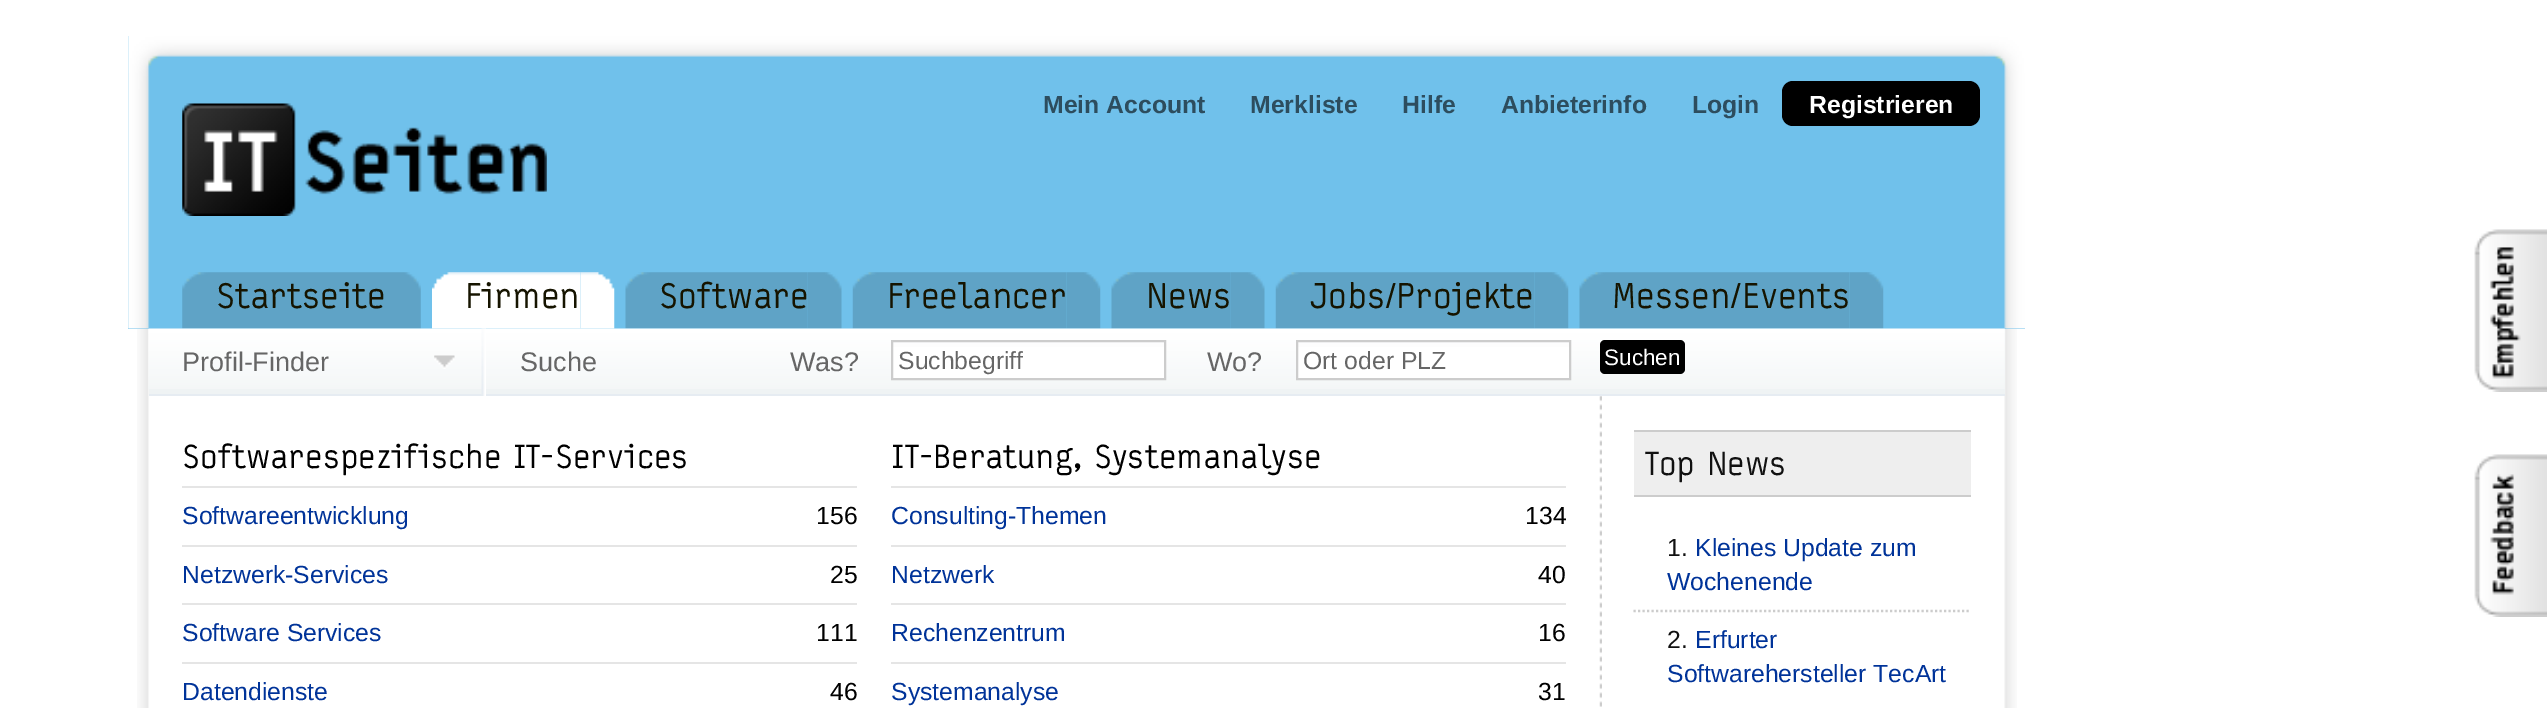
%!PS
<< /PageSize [2547 708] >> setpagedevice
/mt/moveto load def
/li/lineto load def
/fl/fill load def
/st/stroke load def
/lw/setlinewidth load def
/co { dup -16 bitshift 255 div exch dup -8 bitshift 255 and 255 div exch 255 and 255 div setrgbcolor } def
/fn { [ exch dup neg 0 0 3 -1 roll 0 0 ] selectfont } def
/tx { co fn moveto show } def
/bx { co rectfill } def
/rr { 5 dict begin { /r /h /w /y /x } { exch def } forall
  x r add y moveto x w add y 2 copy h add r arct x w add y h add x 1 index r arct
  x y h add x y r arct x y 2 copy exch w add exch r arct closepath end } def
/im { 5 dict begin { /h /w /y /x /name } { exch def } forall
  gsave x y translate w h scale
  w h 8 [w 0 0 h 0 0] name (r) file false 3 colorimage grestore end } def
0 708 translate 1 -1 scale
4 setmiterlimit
0 0 2547 708 16#FFFFFF bx
(media/1.raw) 137 329 1880 379 im
128 36 1897 293 16#70C1EB bx
(media/2.raw) 128 36 1897 293 im
(media/3.raw) 182 103 365 113 im
16#000000 co
1782 81 198 45 11 rr fl
(media/4.raw) 387 272 34 57 im
(media/5.raw) 182 272 205 57 im
(media/6.raw) 580 272 35 57 im
(media/7.raw) 432 272 149 57 im
(media/8.raw) 807 272 35 57 im
(media/9.raw) 625 272 183 57 im
(media/10.raw) 1066 272 35 57 im
(media/11.raw) 852 272 215 57 im
(media/12.raw) 1230 272 35 57 im
(media/13.raw) 1111 272 120 57 im
(media/10.raw) 1534 272 35 57 im
(media/14.raw) 1275 272 260 57 im
(media/15.raw) 1849 272 35 57 im
(media/16.raw) 1579 272 271 57 im
(media/17.raw) 2474 229 73 163 im
149 329 1856 65 16#EFF3F4 bx
(media/18.raw) 148 328 1857 61 im
149 394 1856 2 16#E6ECF2 bx
(media/19.raw) 481 328 5 68 im
(media/20.raw) 434 355 21 14 im
893 347 271 31 16#FFFFFF bx
16#CCCCCC co
2 lw
892 341 273 38 rectstroke
1298 347 271 31 16#FFFFFF bx
16#CCCCCC co
1297 341 273 38 rectstroke
16#000000 co
1600 340 85 34 5 rr fl
(media/21.raw) 1599 396 3 311 im
182 486 675 2 16#E5E5E5 bx
182 545 675 2 16#E5E5E5 bx
182 603 675 2 16#E5E5E5 bx
182 662 675 2 16#E5E5E5 bx
891 486 675 2 16#E5E5E5 bx
891 545 675 2 16#E5E5E5 bx
891 603 675 2 16#E5E5E5 bx
891 662 675 2 16#E5E5E5 bx
1634 432 337 63 16#EEEEEE bx
1634 430 337 2 16#CCCCCC bx
1634 495 337 2 16#CCCCCC bx
2.2 lw
[2.25 2.25] 0 setdash
1633.5 611 mt 1971 611 li st
(media/22.raw) 2474 454 73 163 im
(Mein Account) 1043 113 /LiberationSans-Bold 24.75 16#2D4D5E tx
(Merkliste) 1250 113 /LiberationSans-Bold 24.75 16#2D4D5E tx
(Hilfe) 1402 113 /LiberationSans-Bold 24.75 16#2D4D5E tx
(Anbieterinfo) 1501 113 /LiberationSans-Bold 24.75 16#2D4D5E tx
(Login) 1692 113 /LiberationSans-Bold 24.75 16#2D4D5E tx
(Registrieren) 1809 113 /LiberationSans-Bold 24.75 16#FFFFFF tx
(Startseite) 216 308 /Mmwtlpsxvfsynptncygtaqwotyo-Regular 36 16#161400 tx
(Firmen) 465 308 /Mmwtlpsxvfsynptncygtaqwotyo-Regular 36 16#161400 tx
(Software) 659 308 /Mmwtlpsxvfsynptncygtaqwotyo-Regular 36 16#161400 tx
(Freelancer) 887 308 /Mmwtlpsxvfsynptncygtaqwotyo-Regular 36 16#161400 tx
(News) 1146 308 /Mmwtlpsxvfsynptncygtaqwotyo-Regular 36 16#161400 tx
(Jobs/Projekte) 1310 308 /Mmwtlpsxvfsynptncygtaqwotyo-Regular 36 16#161400 tx
(Messen/Events) 1612 308 /Mmwtlpsxvfsynptncygtaqwotyo-Regular 36 16#161400 tx
(Profil-Finder) 182 371 /LiberationSans-Regular 27 16#666666 tx
(Suche) 520 371 /LiberationSans-Regular 27 16#666666 tx
(Was?) 790 371 /LiberationSans-Regular 27 16#666666 tx
(Suchbegriff) 898 369 /LiberationSans-Regular 24.75 16#666666 tx
(Wo?) 1207 371 /LiberationSans-Regular 27 16#666666 tx
(Ort oder PLZ) 1303 369 /LiberationSans-Regular 24.75 16#666666 tx
(Suchen) 1604 365 /LiberationSans-Regular 22.5 16#FFFFFF tx
(Softwarespezifische IT-Services) 182 468 /Mmwtlpsxvfsynptncygtaqwotyo-Regular 33.75 16#000000 tx
(Softwareentwicklung) 182 524 /LiberationSans-Regular 24.75 16#003399 tx
(156) 816 524 /LiberationSans-Regular 24.75 16#000000 tx
(Netzwerk-Services) 182 583 /LiberationSans-Regular 24.75 16#003399 tx
(25) 830 583 /LiberationSans-Regular 24.75 16#000000 tx
(Software Services) 182 641 /LiberationSans-Regular 24.75 16#003399 tx
(111) 816 641 /LiberationSans-Regular 24.75 16#000000 tx
(Datendienste) 182 700 /LiberationSans-Regular 24.75 16#003399 tx
(46) 830 700 /LiberationSans-Regular 24.75 16#000000 tx
(IT-Beratung, Systemanalyse) 891 468 /Mmwtlpsxvfsynptncygtaqwotyo-Regular 33.75 16#000000 tx
(Consulting-Themen) 891 524 /LiberationSans-Regular 24.75 16#003399 tx
(134) 1525 524 /LiberationSans-Regular 24.75 16#000000 tx
(Netzwerk) 891 583 /LiberationSans-Regular 24.75 16#003399 tx
(40) 1538 583 /LiberationSans-Regular 24.75 16#000000 tx
(Rechenzentrum) 891 641 /LiberationSans-Regular 24.75 16#003399 tx
(16) 1538 641 /LiberationSans-Regular 24.75 16#000000 tx
(Systemanalyse) 891 700 /LiberationSans-Regular 24.75 16#003399 tx
(31) 1538 700 /LiberationSans-Regular 24.75 16#000000 tx
(Top News) 1645 475 /Mmwtlpsxvfsynptncygtaqwotyo-Regular 33.75 16#111111 tx
(1.) 1667 556 /LiberationSans-Regular 24.75 16#111111 tx
(Kleines Update zum) 1695 556 /LiberationSans-Regular 24.75 16#003399 tx
(Wochenende) 1667 590 /LiberationSans-Regular 24.75 16#003399 tx
(2.) 1667 648 /LiberationSans-Regular 24.75 16#111111 tx
(Erfurter) 1695 648 /LiberationSans-Regular 24.75 16#003399 tx
(Softwarehersteller TecArt) 1667 682 /LiberationSans-Regular 24.75 16#003399 tx
showpage
